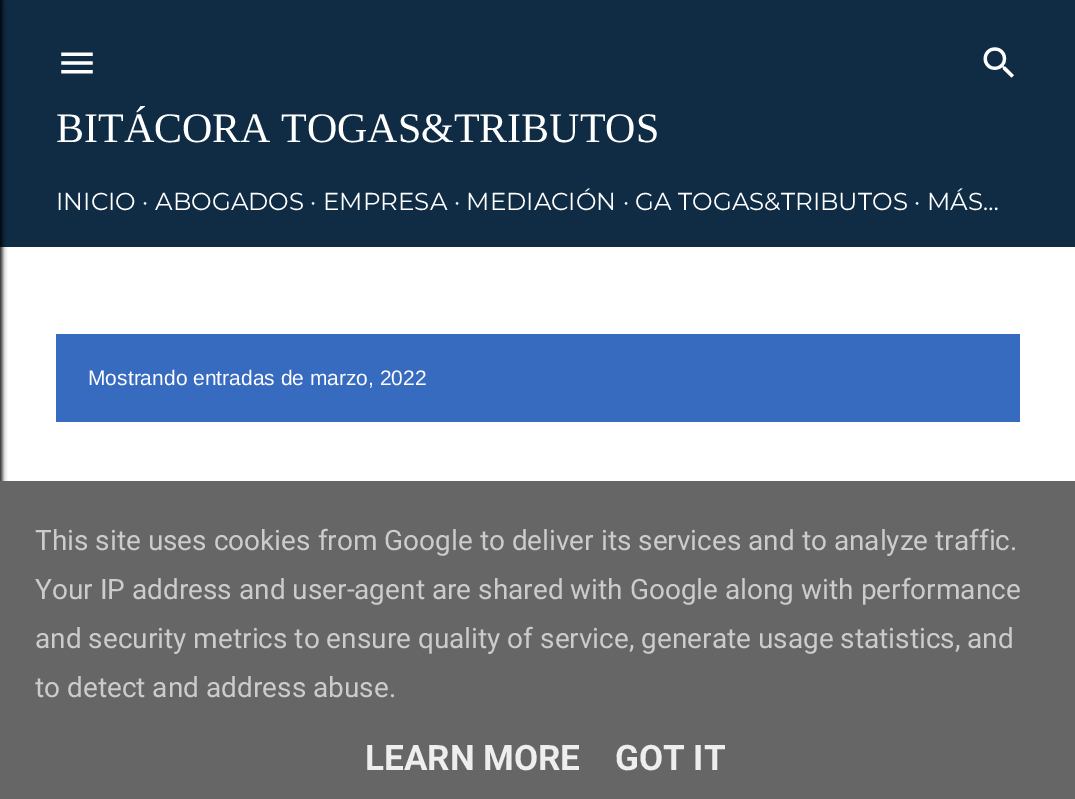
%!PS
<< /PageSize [1075 799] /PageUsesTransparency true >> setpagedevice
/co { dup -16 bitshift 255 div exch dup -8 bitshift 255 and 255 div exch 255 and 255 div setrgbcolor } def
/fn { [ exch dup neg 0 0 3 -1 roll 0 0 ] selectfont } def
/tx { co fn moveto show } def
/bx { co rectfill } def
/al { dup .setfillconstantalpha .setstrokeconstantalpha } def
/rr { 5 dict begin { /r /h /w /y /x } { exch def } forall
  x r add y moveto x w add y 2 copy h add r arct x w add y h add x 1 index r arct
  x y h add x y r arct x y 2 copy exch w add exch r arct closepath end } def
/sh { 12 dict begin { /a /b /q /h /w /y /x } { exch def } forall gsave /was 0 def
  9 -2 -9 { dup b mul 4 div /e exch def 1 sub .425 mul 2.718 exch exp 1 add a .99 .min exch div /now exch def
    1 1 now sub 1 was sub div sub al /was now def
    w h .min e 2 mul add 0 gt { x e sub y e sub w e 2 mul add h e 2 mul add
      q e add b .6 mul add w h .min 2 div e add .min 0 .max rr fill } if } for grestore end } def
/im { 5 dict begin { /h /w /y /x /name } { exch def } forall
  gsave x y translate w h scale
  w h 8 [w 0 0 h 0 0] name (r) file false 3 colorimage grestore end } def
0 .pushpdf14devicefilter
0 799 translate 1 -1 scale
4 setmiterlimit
0 0 1075 799 16#FFFFFF bx
0 0 1075 247 16#0F2C44 bx
16#000000 co
-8 0 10 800 0 2.5 1 sh
(media/1.raw) 61 52 32 22 im
(media/2.raw) 983 47 31 31 im
56 334 964 88 16#376BBF bx
0 481 1075 318 16#666666 bx
(BITÁCORA TOGAS&TRIBUTOS) 56 142 /LiberationSerif-Regular 42 16#FFFFFF tx
(INICIO · ABOGADOS · EMPRESA · MEDIACIÓN · GA TOGAS&TRIBUTOS · MÁS…) 56 210 /Montserrat-Thin 24.5 16#FFFFFF tx
(Mostrando entradas de marzo, 2022) 88 385 /LiberationSans-Regular 21 16#FFFFFF tx
(This site uses cookies from Google to deliver its services and to analyze traffic.) 35 550 /Roboto-Regular 28 16#CCCCCC tx
(Your IP address and user-agent are shared with Google along with performance) 35 599 /Roboto-Regular 28 16#CCCCCC tx
(and security metrics to ensure quality of service, generate usage statistics, and) 35 648 /Roboto-Regular 28 16#CCCCCC tx
(to detect and address abuse.) 35 697 /Roboto-Regular 28 16#CCCCCC tx
(LEARN MORE) 365 770 /Roboto-Bold 35 16#EEEEEE tx
(GOT IT) 615 770 /Roboto-Bold 35 16#EEEEEE tx
.poppdf14devicefilter showpage
